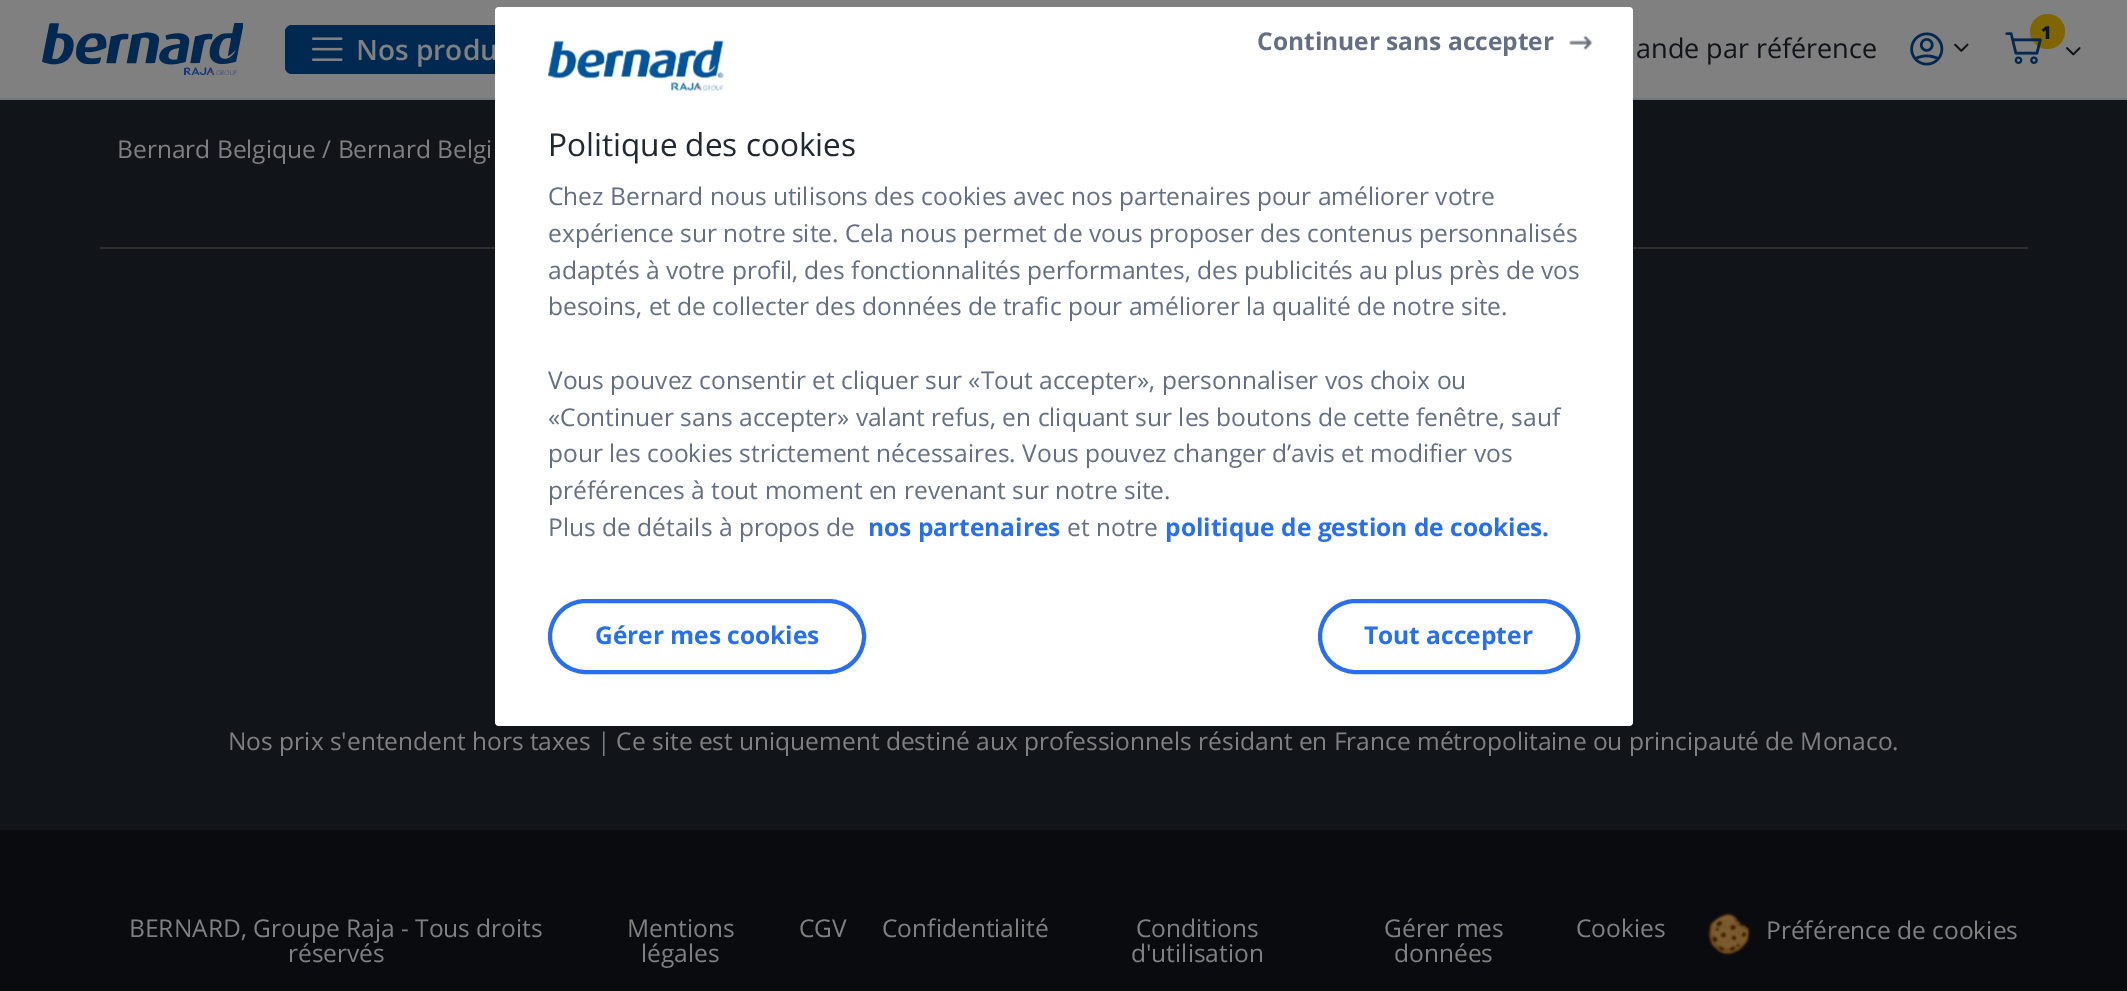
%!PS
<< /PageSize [2127 991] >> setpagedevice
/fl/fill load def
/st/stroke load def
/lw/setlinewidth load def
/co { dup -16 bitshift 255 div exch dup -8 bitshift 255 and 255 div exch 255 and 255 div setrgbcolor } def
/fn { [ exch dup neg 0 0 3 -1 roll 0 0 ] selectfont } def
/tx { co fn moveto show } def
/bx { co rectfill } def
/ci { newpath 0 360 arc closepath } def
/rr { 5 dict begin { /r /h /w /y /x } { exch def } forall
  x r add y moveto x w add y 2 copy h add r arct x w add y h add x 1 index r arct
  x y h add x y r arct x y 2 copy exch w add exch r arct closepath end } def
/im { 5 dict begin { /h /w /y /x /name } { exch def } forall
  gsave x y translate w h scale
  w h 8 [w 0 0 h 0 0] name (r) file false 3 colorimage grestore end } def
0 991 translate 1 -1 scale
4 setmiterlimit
0 0 2127 991 16#111419 bx
0 0 2127 98 16#808080 bx
0 98 2127 2 16#73777B bx
(media/1.raw) 42 23 201 52 im
16#002850 co
285 25 266 49 7 rr fl
(media/2.raw) 312 37 31 24 im
(media/3.raw) 1910 32 34 34 im
(media/4.raw) 1954 43 15 9 im
16#806600 co
2047.5 31.5 17.5 ci fl
(media/5.raw) 2005 32 37 32 im
(media/6.raw) 2066 47 15 9 im
100 247 1928 2 16#2E2E2E bx
0 830 2127 161 16#090B0E bx
(media/9.raw) 1707 912 44 44 im
(Nos produ) 356 60 /OpenSans-SemiBold 28 16#808080 tx
(ande par référence) 1636 58 /OpenSans-Regular 27 16#111419 tx
(1) 2041 39 /OpenSans-ExtraBold 18 16#01163D tx
16#FFFFFF co
495 7 1138 719 4 rr fl
(media/7.raw) 547 40 177 51 im
(Continuer sans accepter) 1257 50 /OpenSans-Bold 24.5 16#656F84 tx
(media/8.raw) 1569 35 24 15 im
(Politique des cookies) 548 156 /OpenSans-Regular 31.5 16#222831 tx
(Chez Bernard nous utilisons des cookies avec nos partenaires pour améliorer votre) 548 205 /OpenSans-Regular 24.5 16#656F84 tx
(expérience sur notre site. Cela nous permet de vous proposer des contenus personnalisés) 548 242 /OpenSans-Regular 24.5 16#656F84 tx
(adaptés à votre profil, des fonctionnalités performantes, des publicités au plus près de vos) 548 279 /OpenSans-Regular 24.5 16#656F84 tx
(besoins, et de collecter des données de trafic pour améliorer la qualité de notre site.) 548 315 /OpenSans-Regular 24.5 16#656F84 tx
(Vous pouvez consentir et cliquer sur «Tout accepter», personnaliser vos choix ou) 548 389 /OpenSans-Regular 24.5 16#656F84 tx
(«Continuer sans accepter» valant refus, en cliquant sur les boutons de cette fenêtre, sauf) 548 426 /OpenSans-Regular 24.5 16#656F84 tx
(pour les cookies strictement nécessaires. Vous pouvez changer d’avis et modifier vos) 548 462 /OpenSans-Regular 24.5 16#656F84 tx
(préférences à tout moment en revenant sur notre site.) 548 499 /OpenSans-Regular 24.5 16#656F84 tx
(Plus de détails à propos de) 548 536 /OpenSans-Regular 24.5 16#656F84 tx
(nos partenaires) 868 536 /OpenSans-Bold 24.5 16#276EF1 tx
(et notre) 1067 536 /OpenSans-Regular 24.5 16#656F84 tx
(politique de gestion de cookies.) 1165 536 /OpenSans-Bold 24.5 16#276EF1 tx
4 lw
550 601 314 71 35.5 rr st
(Gérer mes cookies) 595 644 /OpenSans-Bold 24.5 16#276EF1 tx
1320 601 258 71 35.5 rr st
(Tout accepter) 1364 644 /OpenSans-Bold 24.5 16#276EF1 tx
(Bernard Belgique / Bernard Belgi) 117 158 /OpenSans-Regular 24.5 16#808080 tx
(Nos prix s'entendent hors taxes | Ce site est uniquement destiné aux professionnels résidant en France métropolitaine ou principauté de Monaco.) 228 750 /OpenSans-Regular 24.5 16#808080 tx
(BERNARD, Groupe Raja - Tous droits) 129 937 /OpenSans-Regular 24.5 16#808080 tx
(réservés) 288 962 /OpenSans-Regular 24.5 16#808080 tx
(Mentions) 627 937 /OpenSans-Regular 24.5 16#808080 tx
(légales) 641 962 /OpenSans-Regular 24.5 16#808080 tx
(CGV) 799 937 /OpenSans-Regular 24.5 16#808080 tx
(Confidentialité) 882 937 /OpenSans-Regular 24.5 16#808080 tx
(Conditions) 1136 937 /OpenSans-Regular 24.5 16#808080 tx
(d'utilisation) 1131 962 /OpenSans-Regular 24.5 16#808080 tx
(Gérer mes) 1384 937 /OpenSans-Regular 24.5 16#808080 tx
(données) 1394 962 /OpenSans-Regular 24.5 16#808080 tx
(Cookies) 1576 937 /OpenSans-Regular 24.5 16#808080 tx
(Préférence de cookies) 1766 939 /OpenSans-Regular 24.5 16#808080 tx
showpage
